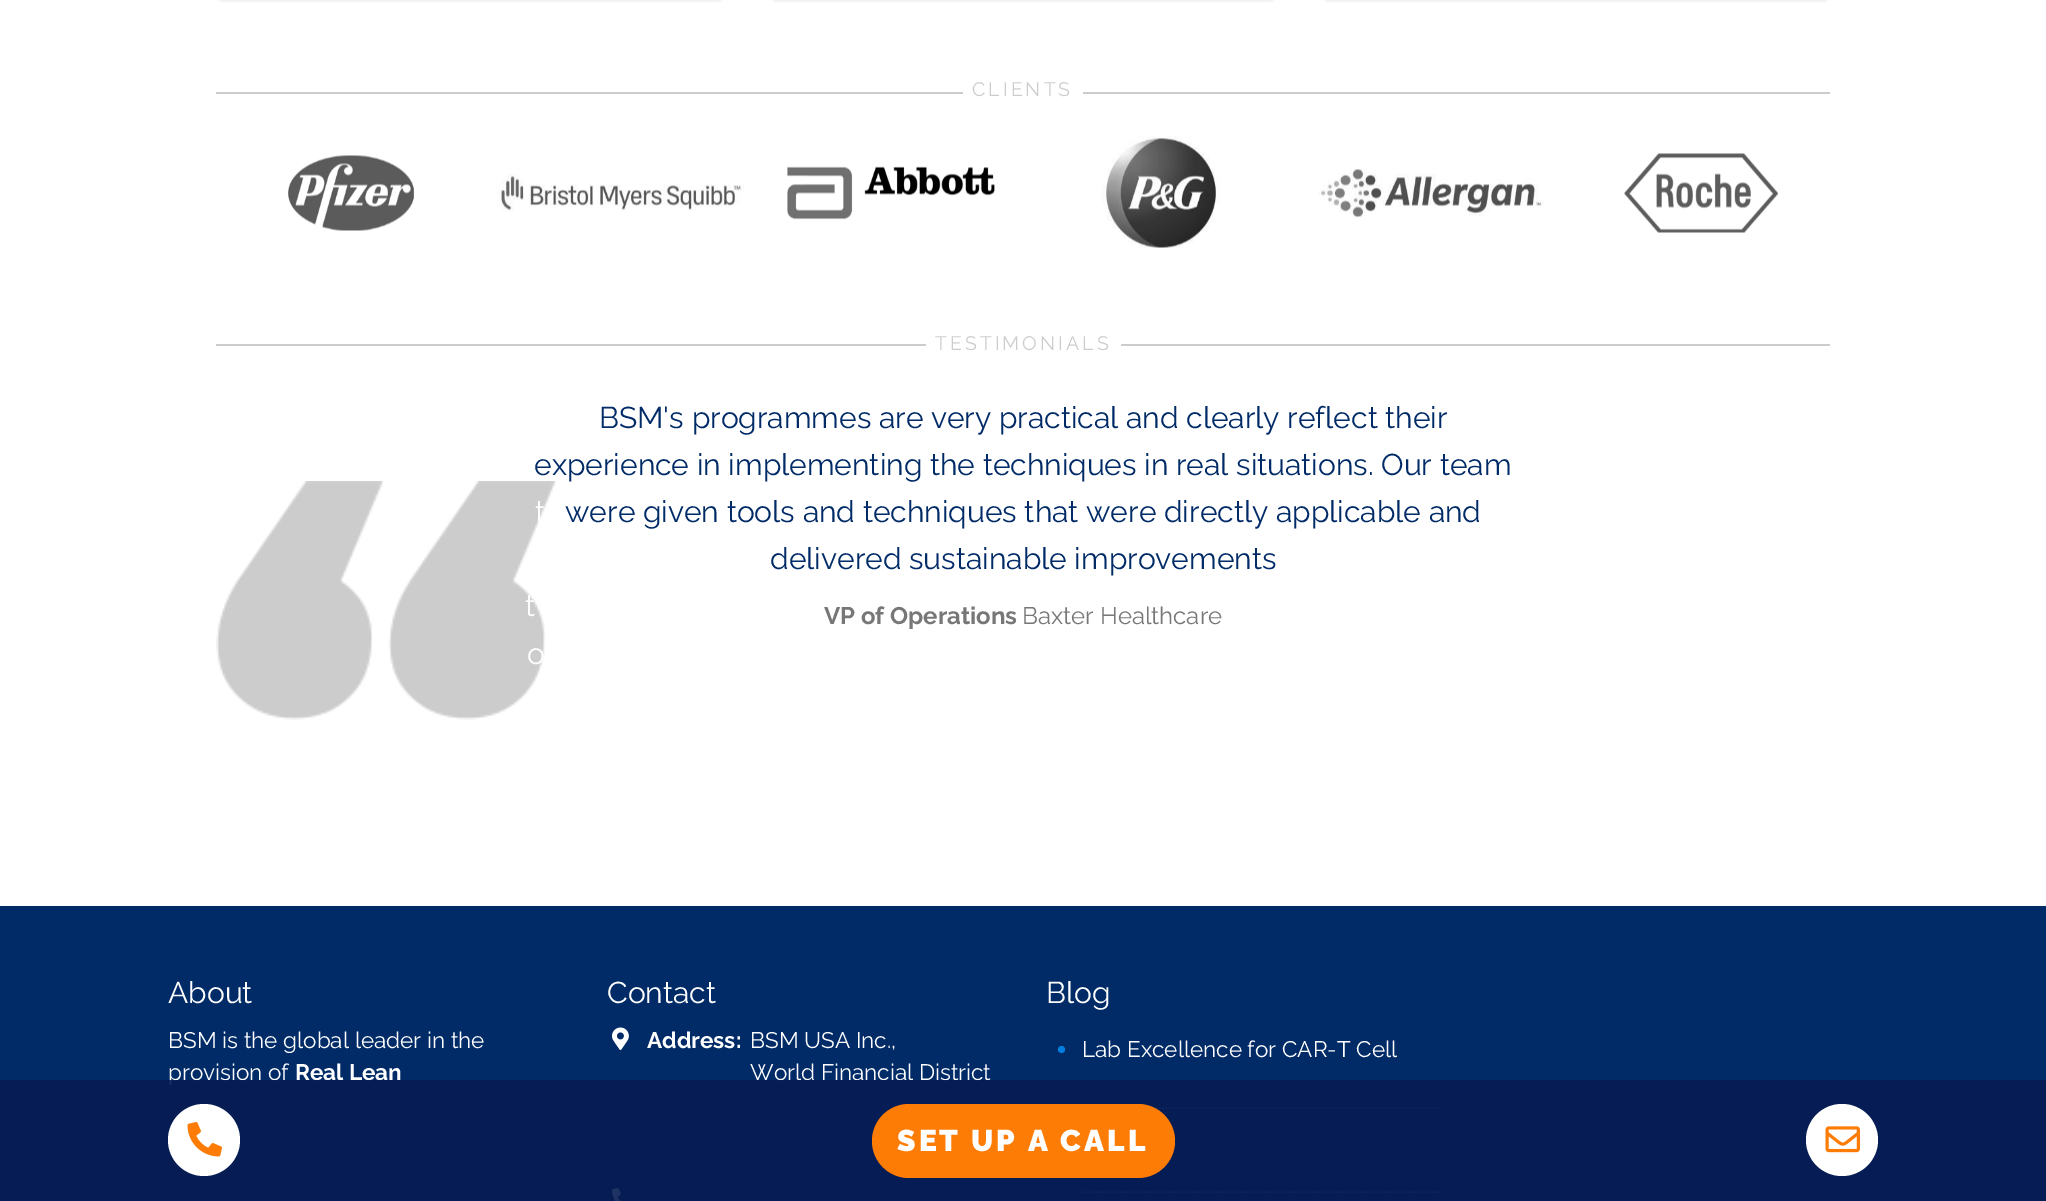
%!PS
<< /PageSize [2046 1201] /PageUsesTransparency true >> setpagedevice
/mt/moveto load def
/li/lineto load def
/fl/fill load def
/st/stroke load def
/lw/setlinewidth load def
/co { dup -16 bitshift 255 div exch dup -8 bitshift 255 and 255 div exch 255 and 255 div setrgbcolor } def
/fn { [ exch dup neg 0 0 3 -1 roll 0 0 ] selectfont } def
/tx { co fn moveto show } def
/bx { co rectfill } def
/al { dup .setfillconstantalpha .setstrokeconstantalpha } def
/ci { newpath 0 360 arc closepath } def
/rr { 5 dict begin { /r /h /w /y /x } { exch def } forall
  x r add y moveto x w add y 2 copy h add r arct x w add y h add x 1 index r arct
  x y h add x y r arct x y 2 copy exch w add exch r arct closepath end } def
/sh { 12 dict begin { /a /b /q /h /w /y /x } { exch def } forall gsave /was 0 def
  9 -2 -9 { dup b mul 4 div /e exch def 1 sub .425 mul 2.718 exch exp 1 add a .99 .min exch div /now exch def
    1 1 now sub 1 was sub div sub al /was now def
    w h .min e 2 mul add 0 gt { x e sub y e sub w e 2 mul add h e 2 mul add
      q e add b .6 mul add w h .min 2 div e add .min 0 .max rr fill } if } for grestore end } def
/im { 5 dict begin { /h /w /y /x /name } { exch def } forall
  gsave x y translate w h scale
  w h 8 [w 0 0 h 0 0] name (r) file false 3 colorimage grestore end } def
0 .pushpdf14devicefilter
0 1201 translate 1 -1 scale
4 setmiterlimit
0 0 2046 1201 16#FFFFFF bx
16#000000 co
216 -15 509 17 12 1 .05 sh
770 -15 507 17 12 1 .05 sh
1322 -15 508 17 12 1 .05 sh
216 92 1614 2 16#CCCCCC bx
963 92 120 2 16#FFFFFF bx
(media/1.raw) 288 155 126 76 im
(media/2.raw) 497 174 247 38 im
(media/3.raw) 787 166 208 54 im
(media/4.raw) 1102 136 118 112 im
(media/5.raw) 1318 169 226 48 im
(media/6.raw) 1624 153 154 80 im
216 344 1614 2 16#CCCCCC bx
926 344 195 2 16#FFFFFF bx
(media/7.raw) 216 481 341 239 im
0 906 2046 295 16#012B67 bx
(media/8.raw) 612 1027 17 23 im
(media/9.raw) 612 1188 9 13 im
16#4D6B95 co
1.5 lw
[1.5 1.5] 0 setdash
1081.5 1108 mt 1440 1108 li st
16#007FE1 co
1061.5 1049.5 3.5 ci fl
16#4D6B95 co
1081.5 1192 mt 1440 1192 li st
/Raleway-Thin 19.5 fn
16#CCCCCC co
972 96 mt 3 0 (CLIENTS) ashow
935 350 mt 3 0 (TESTIMONIALS) ashow
(BSM's programmes are very practical and clearly reflect their) 599 428 /Raleway-Thin 30 16#012B67 tx
(experience in implementing the techniques in real situations. Our team) 534 475 /Raleway-Thin 30 16#012B67 tx
(were given tools and techniques that were directly applicable and) 565 522 /Raleway-Thin 30 16#012B67 tx
(delivered sustainable improvements) 770 569 /Raleway-Thin 30 16#012B67 tx
(VP of Operations) 824 624 /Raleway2-Thin 24 16#777777 tx
(Baxter Healthcare) 1022 624 /Raleway-Thin 24 16#777777 tx
(t) 535 522 /Raleway-Thin 30 16#FEFEFE tx
(o) 527 664 /Raleway-Thin 30 16#FEFEFE tx
(t) 525 616 /Raleway-Thin 30 16#FEFEFE tx
(About) 168 1003 /Raleway-Thin 30 16#FEFEFE tx
(BSM is the global leader in the) 168 1048 /Raleway-Thin 22.5 16#FEFEFE tx
(provision of) 168 1080 /Raleway-Thin 22.5 16#FEFEFE tx
(Real Lean) 295 1080 /Raleway2-Thin 22.5 16#FEFEFE tx
(Contact) 607 1003 /Raleway-Thin 30 16#FEFEFE tx
(Address:) 647 1048 /Raleway2-Thin 22.5 16#FEFEFE tx
(BSM USA Inc.,) 750 1048 /Raleway-Thin 22.5 16#FEFEFE tx
(World Financial District) 750 1080 /Raleway-Thin 22.5 16#FEFEFE tx
(Blog) 1046 1003 /Raleway-Thin 30 16#FEFEFE tx
(Lab Excellence for CAR-T Cell) 1082 1057 /Raleway-Thin 22.5 16#FEFEFE tx
0.9 al
0 1080 2046 121 16#051C52 bx
1 al
16#FFFFFF co
204 1140 36 ci fl
(media/10.raw) 187 1122 35 35 im
16#FD7C05 co
872 1104 303 74 37 rr fl
/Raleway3-Thin 30 fn
16#FEFEFE co
897 1151 mt 3 0 (SET UP A CALL) ashow
16#FFFFFF co
1842 1140 36 ci fl
(media/11.raw) 1825 1126 35 27 im
.poppdf14devicefilter showpage
